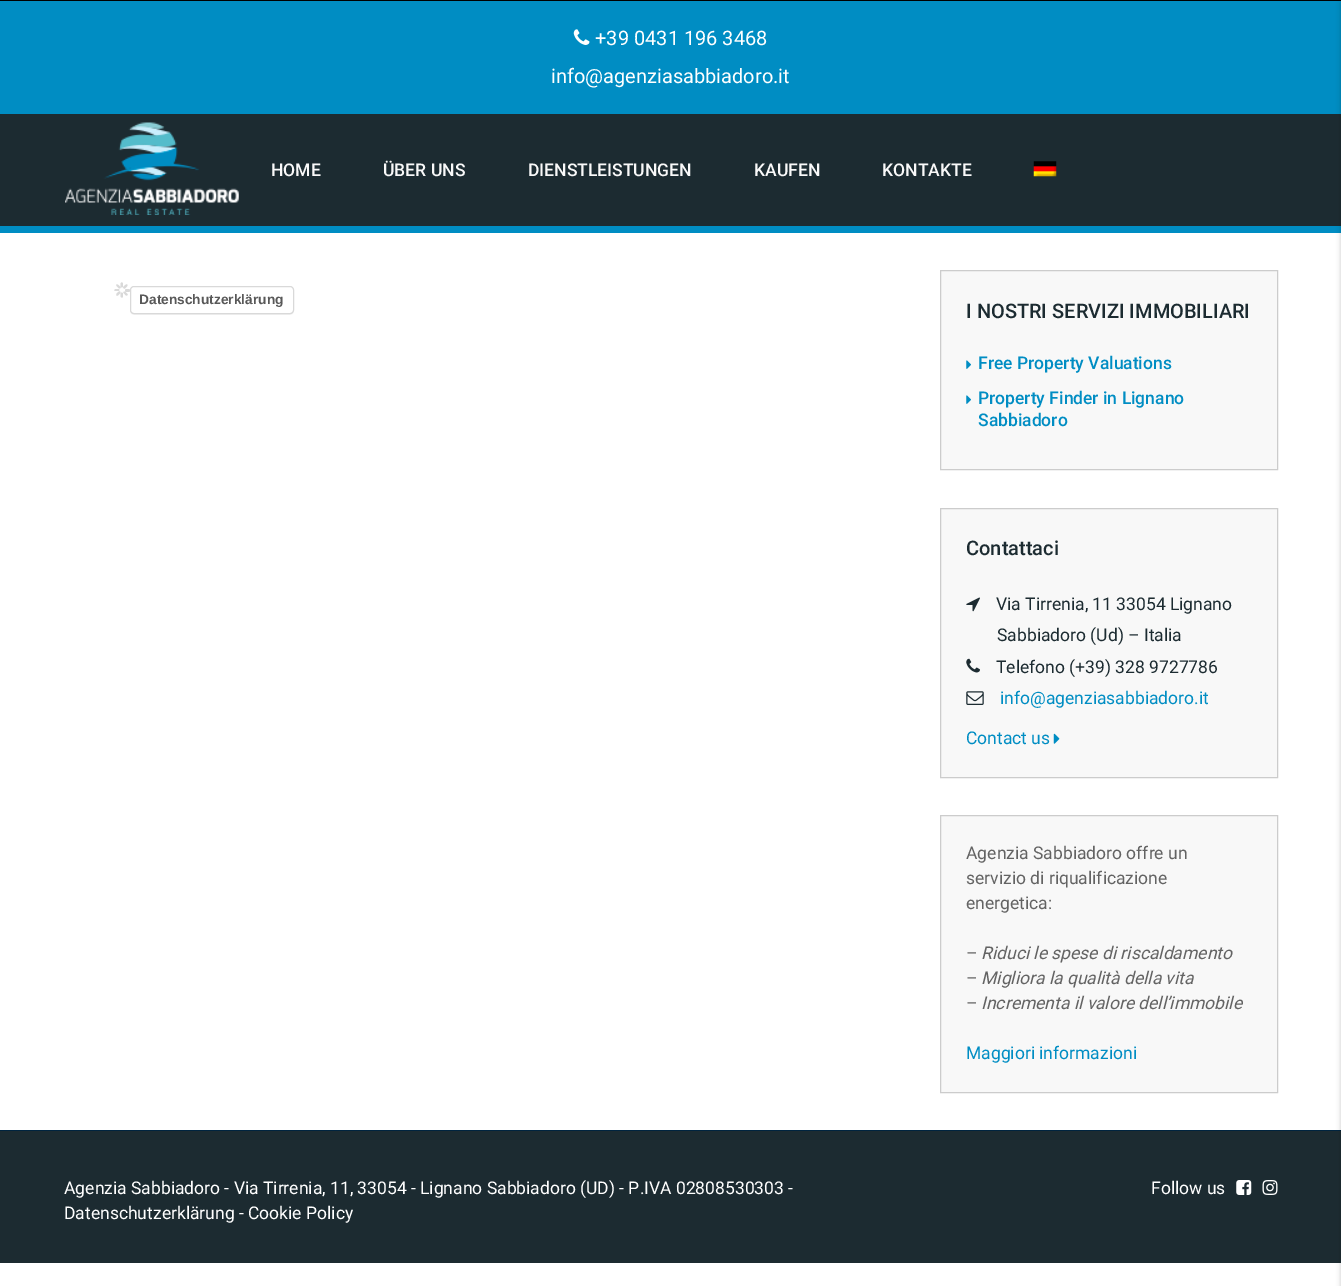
%!PS
<< /PageSize [1341 1286] /PageUsesTransparency true >> setpagedevice
/mt/moveto load def
/li/lineto load def
/ct/curveto load def
/cp/closepath load def
/fl/fill load def
/st/stroke load def
/gs/gsave load def
/gr/grestore load def
/co { dup -16 bitshift 255 div exch dup -8 bitshift 255 and 255 div exch 255 and 255 div setrgbcolor } def
/fn { [ exch dup neg 0 0 3 -1 roll 0 0 ] selectfont } def
/tx { co fn moveto show } def
/bx { co rectfill } def
/al { dup .setfillconstantalpha .setstrokeconstantalpha } def
/rr { 5 dict begin { /r /h /w /y /x } { exch def } forall
  x r add y moveto x w add y 2 copy h add r arct x w add y h add x 1 index r arct
  x y h add x y r arct x y 2 copy exch w add exch r arct closepath end } def
/sh { 12 dict begin { /a /b /q /h /w /y /x } { exch def } forall gsave /was 0 def
  9 -2 -9 { dup b mul 4 div /e exch def 1 sub .425 mul 2.718 exch exp 1 add a .99 .min exch div /now exch def
    1 1 now sub 1 was sub div sub al /was now def
    w h .min e 2 mul add 0 gt { x e sub y e sub w e 2 mul add h e 2 mul add
      q e add b .6 mul add w h .min 2 div e add .min 0 .max rr fill } if } for grestore end } def
/im { 5 dict begin { /h /w /y /x /name } { exch def } forall
  gsave x y translate w h scale
  w h 8 [w 0 0 h 0 0] name (r) file false 3 colorimage grestore end } def
0 .pushpdf14devicefilter
0 1286 translate 1 -1 scale
4 setmiterlimit
0 0 1341 1286 16#FFFFFF bx
0 0 1341 1 16#000000 bx
0 114 1341 112 16#1C2B31 bx
0 226 1341 7 16#008DC3 bx
0 1 1341 113 16#008DC3 bx
(media/1.raw) 573 29 17 16 im
(media/2.raw) 65 122 174 93 im
(media/3.raw) 1033 161 24 16 im
16#D9D9D9 co
118.5 288 mt 116.5 286 li 115.5 284 117.5 284 119 285.5 ct 120.5 287 li 121 288 119.5 289 118.5 288 ct cp fl
0.25 al
16#696969 co
120.5 286 mt 120.5 283.5 li 121.5 281.5 123 282.5 123 284.5 ct 123 286.5 li 122.5 288 120.5 287.5 120.5 286 ct cp 123.5 286.5 mt 126 284.5 li 127.5 283.5 128 285.5 126.5 287 ct 125 288.5 li 124 289 122.5 287.5 123.5 286.5 ct cp fl
1 al
16#DADADA co
118 291 mt 115 291 li 113.5 290.5 114.5 289 116.5 289 ct 118.5 289 li 120 289.5 119.5 291 118 291 ct cp fl
16#000000 co
131 289 162 25 2.5 .5 .15 sh
16#D9D9D9 co
125 289 5 3 1.5 rr fl
125.5 292 mt 127.5 294 li 128 296 126 296 125 294.5 ct 123.5 293 li 123 292 124.5 291 125.5 292 ct cp 123 294 mt 123 296.5 li 122.5 298.5 120.5 297.5 120.5 295.5 ct 120.5 293.5 li 121 292 123 292.5 123 294 ct cp fl
120 293.5 mt 118 295.5 li 116 296.5 116 294.5 117 293 ct 119 291.5 li 120 291 121 292.5 120 293.5 ct cp fl
16#FFFFFF co
130 286 164 28 4 rr fl
0.15 al
16#000000 co
130.5 286.5 163 27 3.5 rr st
1 al
16#F8F8F8 co
940.5 270.5 mt 1277.5 270.5 li 1277.5 469.5 li 940.5 469.5 li cp gs fl gr
16#CCCCCC co
st
(media/4.raw) 966 360 5 9 im
(media/4.raw) 966 395 5 9 im
16#F8F8F8 co
940.5 508.5 mt 1277.5 508.5 li 1277.5 777.5 li 940.5 777.5 li cp gs fl gr
16#CCCCCC co
st
(media/5.raw) 966 597 14 15 im
(media/6.raw) 966 658 14 15 im
(media/7.raw) 966 691 18 14 im
(media/8.raw) 1053 733 7 11 im
16#F8F8F8 co
940.5 815.5 mt 1277.5 815.5 li 1277.5 1092.5 li 940.5 1092.5 li cp gs fl gr
16#CCCCCC co
st
0 1131 1341 132 16#1C2B31 bx
0 1130 1341 1 16#00243F bx
16#000000 co
1341 3 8 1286 0 2.5 .2 sh
(media/9.raw) 1236 1180 16 15 im
(media/10.raw) 1262 1180 16 15 im
(+39 0431 196 3468) 595 45 /Roboto-Regular 20 16#FFFFFF tx
(info@agenziasabbiadoro.it) 551 83 /Roboto-Regular 20 16#FFFFFF tx
(HOME) 271 176 /Roboto-Medium 17.5 16#F9F9F9 tx
(ÜBER UNS) 383 176 /Roboto-Medium 17.5 16#F9F9F9 tx
(DIENSTLEISTUNGEN) 528 176 /Roboto-Medium 17.5 16#F9F9F9 tx
(KAUFEN) 754 176 /Roboto-Medium 17.5 16#F9F9F9 tx
(KONTAKTE) 882 176 /Roboto-Medium 17.5 16#F9F9F9 tx
(Datenschutzerklärung) 139 304 /LiberationSans-Bold 13.75 16#595959 tx
(I NOSTRI SERVIZI IMMOBILIARI) 966 318 /Roboto-Medium 20 16#1C2B31 tx
(Free Property Valuations) 978 369 /Roboto-Medium 17.5 16#008DC3 tx
(Property Finder in Lignano) 978 404 /Roboto-Medium 17.5 16#008DC3 tx
(Sabbiadoro) 978 426 /Roboto-Medium 17.5 16#008DC3 tx
(Contattaci) 966 555 /Roboto-Medium 20 16#1C2B31 tx
(Via Tirrenia, 11 33054 Lignano) 996 610 /Roboto-Regular 17.5 16#1C2B31 tx
(Sabbiadoro \(Ud\) – Italia) 997 641 /Roboto-Regular 17.5 16#1C2B31 tx
(Telefono \(+39\) 328 9727786) 996 673 /Roboto-Regular 17.5 16#1C2B31 tx
(info@agenziasabbiadoro.it) 1000 704 /Roboto-Regular 17.5 16#008DC3 tx
(Contact us) 966 744 /Roboto-Regular 17.5 16#008DC3 tx
(Agenzia Sabbiadoro offre un) 966 859 /Roboto-Regular 17.5 16#636363 tx
(servizio di riqualificazione) 966 884 /Roboto-Regular 17.5 16#636363 tx
(energetica:) 966 909 /Roboto-Regular 17.5 16#636363 tx
(–) 966 959 /Roboto-Regular 17.5 16#636363 tx
(Riduci le spese di riscaldamento) 981 959 /Roboto-Italic 17.5 16#636363 tx
(–) 966 984 /Roboto-Regular 17.5 16#636363 tx
(Migliora la qualità della vita) 981 984 /Roboto-Italic 17.5 16#636363 tx
(–) 966 1009 /Roboto-Regular 17.5 16#636363 tx
(Incrementa il valore dell’immobile) 981 1009 /Roboto-Italic 17.5 16#636363 tx
(Maggiori informazioni) 966 1059 /Roboto-Regular 17.5 16#008DC3 tx
(Agenzia Sabbiadoro - Via Tirrenia, 11, 33054 - Lignano Sabbiadoro \(UD\) - P.IVA 02808530303 -) 64 1194 /Roboto-Regular 17.5 16#FFFFFF tx
(Datenschutzerklärung - Cookie Policy) 64 1219 /Roboto-Regular 17.5 16#FFFFFF tx
(Follow us) 1151 1194 /Roboto-Regular 17.5 16#FFFFFF tx
.poppdf14devicefilter showpage
